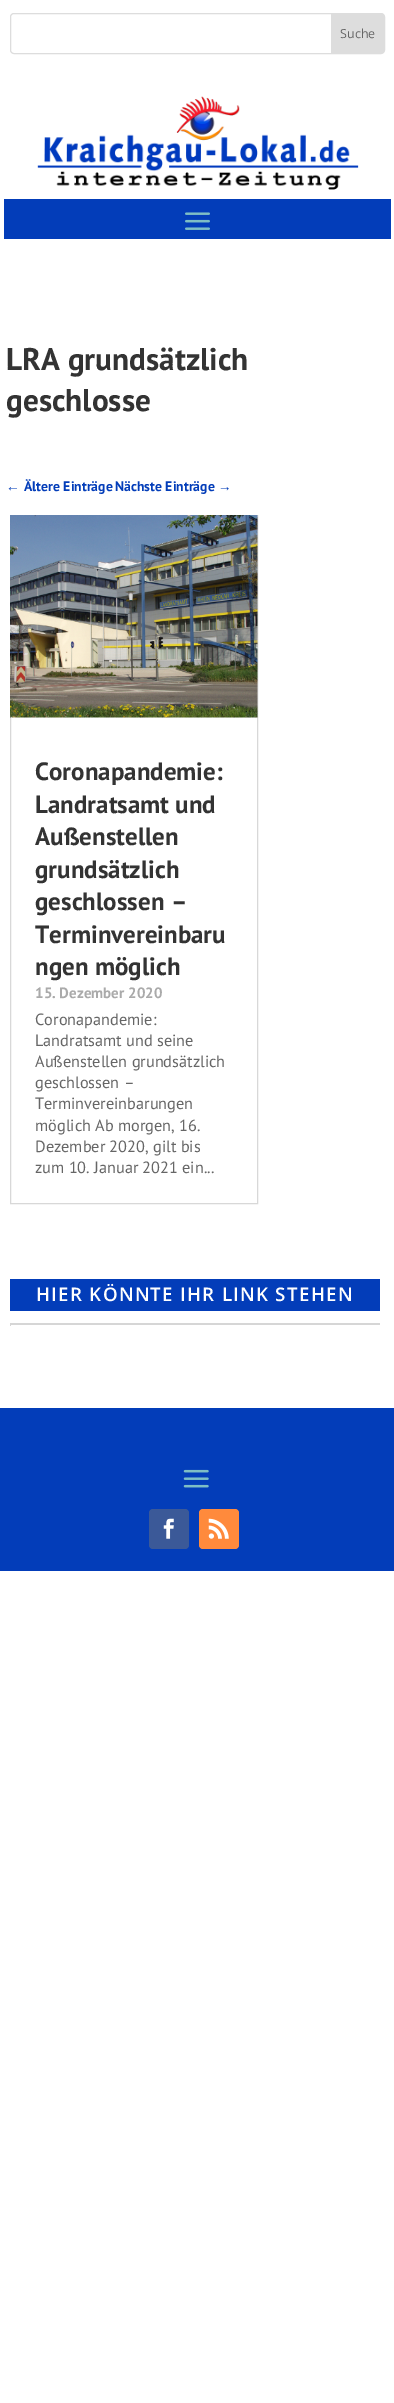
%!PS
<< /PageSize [394 2403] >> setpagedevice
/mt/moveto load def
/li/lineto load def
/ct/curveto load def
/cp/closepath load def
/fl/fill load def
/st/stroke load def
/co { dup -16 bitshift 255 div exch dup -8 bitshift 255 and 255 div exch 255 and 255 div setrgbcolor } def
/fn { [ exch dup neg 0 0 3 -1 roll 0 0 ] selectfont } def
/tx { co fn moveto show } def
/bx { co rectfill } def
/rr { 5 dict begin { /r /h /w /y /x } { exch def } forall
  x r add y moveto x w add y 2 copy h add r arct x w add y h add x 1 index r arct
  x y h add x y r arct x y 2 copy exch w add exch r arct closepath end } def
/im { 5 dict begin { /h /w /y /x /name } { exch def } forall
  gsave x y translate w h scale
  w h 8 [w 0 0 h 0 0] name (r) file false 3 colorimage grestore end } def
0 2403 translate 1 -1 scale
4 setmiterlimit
0 0 394 2403 16#FFFFFF bx
16#DDDDDD co
10.5 13.5 374 40 3.5 rr st
331 14 mt 381.5 14 li 383 14 384 15 384 16.5 ct 384 50.5 li 384 52 383 53 381.5 53 ct 331 53 li cp fl
(media/1.raw) 37 96 322 94 im
4 199 387 40 16#033DB9 bx
(media/2.raw) 185 212 25 18 im
16#D8D8D8 co
10.5 515.5 247 688 rectstroke
(media/3.raw) 10 515 248 203 im
10 1279 370 32 16#033DB9 bx
10 1323 370 2 16#D6D6D6 bx
10 1323 1 3 16#D6D6D6 bx
0 1408 394 163 16#033DB9 bx
(media/4.raw) 183 1469 26 19 im
16#3B5998 co
149 1509 40 40 4 rr fl
(media/5.raw) 163 1518 11 21 im
16#FF8A3C co
199 1509 40 40 4 rr fl
(media/6.raw) 208 1518 21 21 im
(Suche) 340 38 /OpenSans-Regular 12.5 16#666666 tx
(LRA grundsätzlich) 6 370 /PTSans-Bold 31.25 16#333333 tx
(geschlosse) 6 411 /PTSans-Bold 31.25 16#333333 tx
(←) 6 491 /LiberationSans-Bold 13.75 16#033DB9 tx
(Ältere Einträge) 24 491 /PTSans-Bold 13.75 16#033DB9 tx
(Nächste Einträge) 115 491 /PTSans-Bold 13.75 16#033DB9 tx
(→) 218 491 /LiberationSans-Bold 13.75 16#033DB9 tx
(Coronapandemie:) 35 780 /PTSans-Bold 25 16#333333 tx
(Landratsamt und) 35 813 /PTSans-Bold 25 16#333333 tx
(Außenstellen) 35 845 /PTSans-Bold 25 16#333333 tx
(grundsätzlich) 35 878 /PTSans-Bold 25 16#333333 tx
(geschlossen –) 35 910 /PTSans-Bold 25 16#333333 tx
(Terminvereinbaru) 35 943 /PTSans-Bold 25 16#333333 tx
(ngen möglich) 35 975 /PTSans-Bold 25 16#333333 tx
(15. Dezember 2020) 35 998 /PTSans-Bold 15 16#AAAAAA tx
(Coronapandemie:) 35 1025 /PTSans-Regular 16.25 16#666666 tx
(Landratsamt und seine) 35 1046 /PTSans-Regular 16.25 16#666666 tx
(Außenstellen grundsätzlich) 35 1067 /PTSans-Regular 16.25 16#666666 tx
(geschlossen –) 35 1088 /PTSans-Regular 16.25 16#666666 tx
(Terminvereinbarungen) 35 1109 /PTSans-Regular 16.25 16#666666 tx
(möglich Ab morgen, 16.) 35 1131 /PTSans-Regular 16.25 16#666666 tx
(Dezember 2020, gilt bis) 35 1152 /PTSans-Regular 16.25 16#666666 tx
(zum 10. Januar 2021 ein...) 35 1173 /PTSans-Regular 16.25 16#666666 tx
/OpenSans-SemiBold 18.75 fn
16#FFFFFF co
36 1301 mt 1.25 0 (HIER KÖNNTE IHR LINK STEHEN) ashow
showpage
